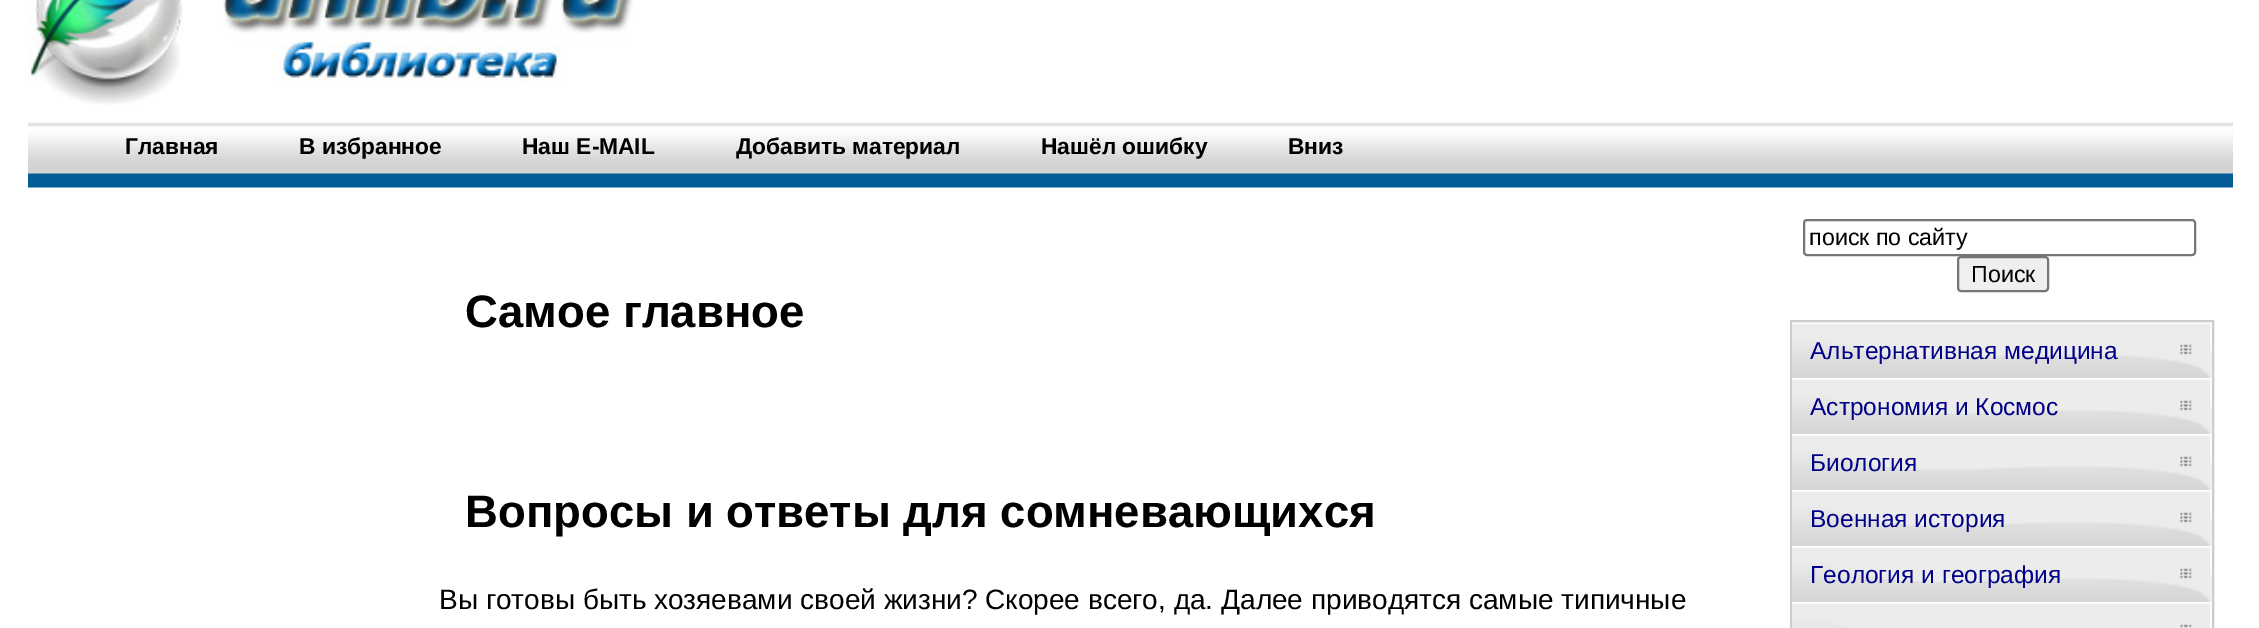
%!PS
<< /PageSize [2259 628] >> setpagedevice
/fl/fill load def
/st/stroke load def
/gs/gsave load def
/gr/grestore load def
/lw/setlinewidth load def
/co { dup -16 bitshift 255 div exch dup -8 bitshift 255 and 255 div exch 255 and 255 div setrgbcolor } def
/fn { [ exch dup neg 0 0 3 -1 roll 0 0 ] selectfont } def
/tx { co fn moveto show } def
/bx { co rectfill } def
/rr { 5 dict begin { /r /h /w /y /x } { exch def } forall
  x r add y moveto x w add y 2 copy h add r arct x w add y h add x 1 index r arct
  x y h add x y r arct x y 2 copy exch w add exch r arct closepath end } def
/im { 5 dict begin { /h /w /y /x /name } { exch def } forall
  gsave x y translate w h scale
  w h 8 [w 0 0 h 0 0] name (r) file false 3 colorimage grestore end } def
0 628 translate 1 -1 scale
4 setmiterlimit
0 0 2259 628 16#FFFFFF bx
(media/1.raw) 28 0 606 105 im
(media/2.raw) 28 122 2205 66 im
16#767676 co
2 lw
1804 220 391 35 3 rr st
16#EFEFEF co
1958 257 90 34 3 rr gs fl gr
16#767676 co
st
16#CCCCCC co
1791 321 422 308 rectstroke
(media/3.raw) 1792 323 420 56 im
(media/4.raw) 1792 378 420 57 im
(media/4.raw) 1792 434 420 57 im
(media/4.raw) 1792 490 420 57 im
(media/4.raw) 1792 546 420 57 im
(media/5.raw) 1792 602 419 26 im
(Главная) 125 154 /LiberationSans-Bold 22.75 16#000000 tx
(В избранное) 299 154 /LiberationSans-Bold 22.75 16#000000 tx
(Наш E-MAIL) 522 154 /LiberationSans-Bold 22.75 16#000000 tx
(Добавить материал) 736 154 /LiberationSans-Bold 22.75 16#000000 tx
(Нашёл ошибку) 1041 154 /LiberationSans-Bold 22.75 16#000000 tx
(Вниз) 1288 154 /LiberationSans-Bold 22.75 16#000000 tx
(Самое главное) 465 327 /LiberationSans-Bold 45.5 16#000000 tx
(Вопросы и ответы для сомневающихся) 465 527 /LiberationSans-Bold 45.5 16#000000 tx
(Вы готовы быть хозяевами своей жизни? Скорее всего, да. Далее приводятся самые типичные) 439 609 /LiberationSans-Regular 28 16#000000 tx
(поиск по сайту) 1809 245 /LiberationSans-Regular 23.25 16#000000 tx
(Поиск) 1971 282 /LiberationSans-Regular 23.25 16#000000 tx
(Альтернативная медицина) 1810 359 /LiberationSans-Regular 24.5 16#000088 tx
(Астрономия и Космос) 1810 415 /LiberationSans-Regular 24.5 16#000088 tx
(Биология) 1810 471 /LiberationSans-Regular 24.5 16#000088 tx
(Военная история) 1810 527 /LiberationSans-Regular 24.5 16#000088 tx
(Геология и география) 1810 583 /LiberationSans-Regular 24.5 16#000088 tx
showpage
